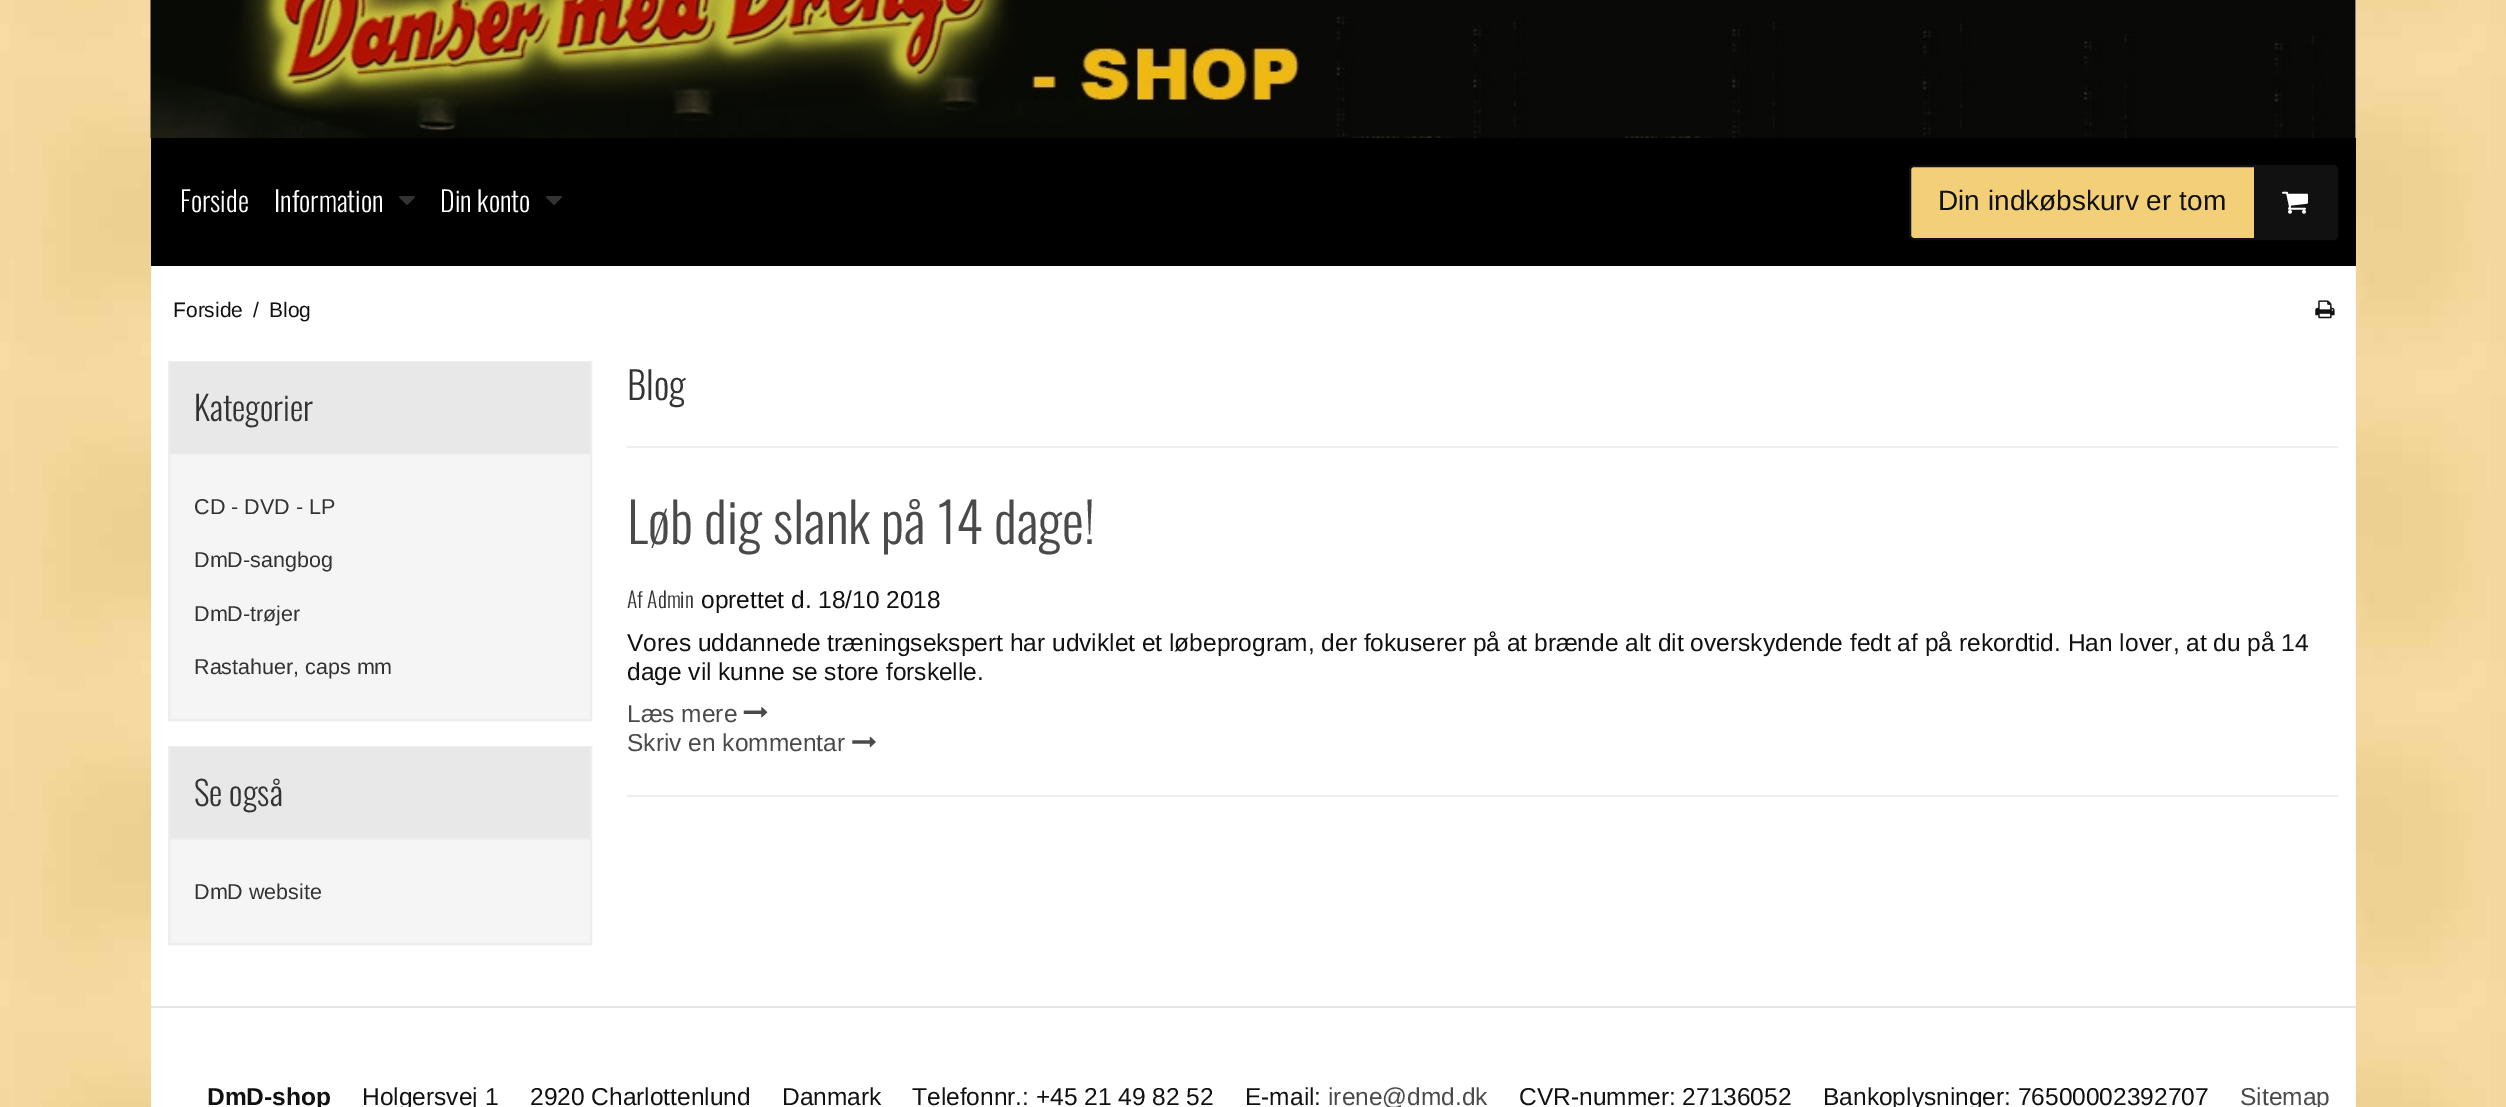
%!PS
<< /PageSize [2506 1107] >> setpagedevice
/fl/fill load def
/st/stroke load def
/gs/gsave load def
/gr/grestore load def
/lw/setlinewidth load def
/co { dup -16 bitshift 255 div exch dup -8 bitshift 255 and 255 div exch 255 and 255 div setrgbcolor } def
/fn { [ exch dup neg 0 0 3 -1 roll 0 0 ] selectfont } def
/tx { co fn moveto show } def
/bx { co rectfill } def
/rr { 5 dict begin { /r /h /w /y /x } { exch def } forall
  x r add y moveto x w add y 2 copy h add r arct x w add y h add x 1 index r arct
  x y h add x y r arct x y 2 copy exch w add exch r arct closepath end } def
/im { 5 dict begin { /h /w /y /x /name } { exch def } forall
  gsave x y translate w h scale
  w h 8 [w 0 0 h 0 0] name (r) file false 3 colorimage grestore end } def
0 1107 translate 1 -1 scale
4 setmiterlimit
0 0 2506 1107 16#FFFFFF bx
(media/1.raw) 0 0 2506 1107 im
2355 0 1 138 16#FFFFFF bx
(media/2.raw) 150 0 2206 138 im
151 138 2205 128 16#000000 bx
(media/3.raw) 399 196 16 9 im
(media/3.raw) 546 196 16 9 im
16#F3D078 co
1910 166 427 73 4 rr gs fl gr
16#111111 co
2 lw
st
2254 167 82 71 16#111111 bx
(media/4.raw) 2282 191 26 23 im
151 266 2205 740 16#FFFFFF bx
(media/5.raw) 2315 300 20 19 im
170 455 420 264 16#F5F5F5 bx
16#EEEEEE co
169 362 422 358 rectstroke
170 362 420 91 16#E8E8E8 bx
170 453 420 2 16#EEEEEE bx
170 840 420 103 16#F5F5F5 bx
16#EEEEEE co
169 747 422 197 rectstroke
170 747 420 91 16#E8E8E8 bx
170 838 420 2 16#EEEEEE bx
627 446 1711 2 16#EEEEEE bx
627 795 1711 2 16#EEEEEE bx
(media/6.raw) 743 707 25 11 im
(media/7.raw) 852 736 24 12 im
151 1008 2205 99 16#FFFFFF bx
151 1006 2205 2 16#E6E6E6 bx
(Forside) 180 212 /Oswald-Light 28 16#FFFFFF tx
(Information) 274 212 /Oswald-Light 28 16#FFFFFF tx
(Din konto) 440 212 /Oswald-Light 28 16#FFFFFF tx
(Din indkøbskurv er tom) 1938 210 /LiberationSans-Regular 28 16#111111 tx
(Forside) 173 317 /LiberationSans-Regular 21 16#111111 tx
(/) 253 317 /LiberationSans-Regular 21 16#111111 tx
(Blog) 269 317 /LiberationSans-Regular 21 16#111111 tx
(Kategorier) 194 421 /Oswald-Light 33.5 16#333333 tx
(CD - DVD - LP) 194 514 /LiberationSans-Regular 21.5 16#333333 tx
(DmD-sangbog) 194 567 /LiberationSans-Regular 21.5 16#333333 tx
(DmD-trøjer) 194 621 /LiberationSans-Regular 21.5 16#333333 tx
(Rastahuer, caps mm) 194 674 /LiberationSans-Regular 21.5 16#333333 tx
(Se også) 194 806 /Oswald-Light 33.5 16#333333 tx
(DmD website) 194 899 /LiberationSans-Regular 21.5 16#333333 tx
(Blog) 627 400 /Oswald-Light 38 16#333333 tx
(Løb dig slank på 14 dage!) 627 544 /Oswald-Light 55.1 16#4A4A4A tx
(Af Admin) 627 608 /Oswald-Light 21.5 16#333333 tx
(oprettet d. 18/10 2018) 701 608 /LiberationSans-Regular 24.5 16#111111 tx
(Vores uddannede træningsekspert har udviklet et løbeprogram, der fokuserer på at brænde alt dit overskydende fedt af på rekordtid. Han lover, at du på 14) 627 651 /LiberationSans-Regular 24.5 16#111111 tx
(dage vil kunne se store forskelle.) 627 680 /LiberationSans-Regular 24.5 16#111111 tx
(Læs mere) 627 722 /LiberationSans-Regular 24.5 16#4A4A4A tx
(Skriv en kommentar) 627 751 /LiberationSans-Regular 24.5 16#4A4A4A tx
(DmD-shop) 207 1105 /LiberationSans-Bold 24.5 16#111111 tx
(Holgersvej 1) 362 1105 /LiberationSans-Regular 24.5 16#111111 tx
(2920 Charlottenlund) 530 1105 /LiberationSans-Regular 24.5 16#111111 tx
(Danmark) 782 1105 /LiberationSans-Regular 24.5 16#111111 tx
(Telefonnr.: +45 21 49 82 52) 912 1105 /LiberationSans-Regular 24.5 16#111111 tx
(E-mail:) 1245 1105 /LiberationSans-Regular 24.5 16#111111 tx
(irene@dmd.dk) 1328 1105 /LiberationSans-Regular 24.5 16#4A4A4A tx
(CVR-nummer: 27136052) 1519 1105 /LiberationSans-Regular 24.5 16#111111 tx
(Bankoplysninger: 76500002392707) 1823 1105 /LiberationSans-Regular 24.5 16#111111 tx
(Sitemap) 2240 1105 /LiberationSans-Regular 24.5 16#4A4A4A tx
showpage
